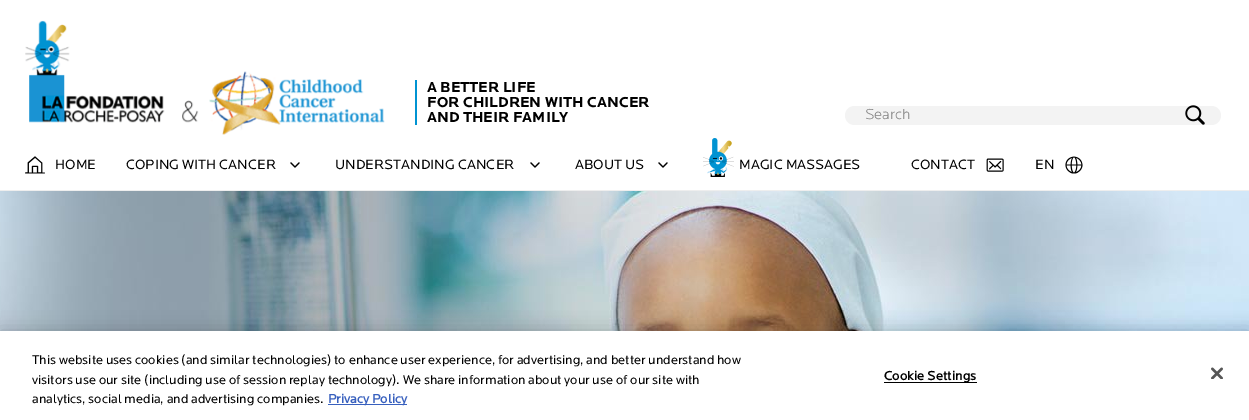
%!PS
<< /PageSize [1249 420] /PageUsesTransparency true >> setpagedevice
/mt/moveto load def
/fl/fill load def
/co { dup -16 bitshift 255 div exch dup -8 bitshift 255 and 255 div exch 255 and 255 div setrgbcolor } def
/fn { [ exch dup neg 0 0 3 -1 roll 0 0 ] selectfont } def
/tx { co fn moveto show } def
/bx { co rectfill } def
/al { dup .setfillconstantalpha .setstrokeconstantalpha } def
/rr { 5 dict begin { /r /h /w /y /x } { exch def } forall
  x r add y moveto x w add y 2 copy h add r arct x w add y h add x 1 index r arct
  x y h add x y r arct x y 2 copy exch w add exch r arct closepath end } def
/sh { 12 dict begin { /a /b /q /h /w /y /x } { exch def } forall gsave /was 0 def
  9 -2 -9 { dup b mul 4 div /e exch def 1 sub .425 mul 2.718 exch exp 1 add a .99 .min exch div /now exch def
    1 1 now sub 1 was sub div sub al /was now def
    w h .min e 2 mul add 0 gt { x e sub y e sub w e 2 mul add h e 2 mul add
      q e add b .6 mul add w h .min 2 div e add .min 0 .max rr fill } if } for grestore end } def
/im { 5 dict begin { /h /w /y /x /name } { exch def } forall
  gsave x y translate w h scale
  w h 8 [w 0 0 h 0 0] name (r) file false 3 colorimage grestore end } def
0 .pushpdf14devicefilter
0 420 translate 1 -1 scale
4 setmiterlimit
0 0 1249 420 16#FFFFFF bx
0 190 1249 1 16#EEEEEE bx
(media/1.raw) 25 20 360 115 im
415 80 2 45 16#0093D2 bx
16#F3F3F3 co
845 106 376 19 9.5 rr fl
(media/2.raw) 1185 105 20 20 im
(media/3.raw) 25 156 20 18 im
(media/4.raw) 290 162 10 6 im
(media/5.raw) 530 162 10 6 im
(media/4.raw) 658 162 10 6 im
(media/6.raw) 703 138 31 39 im
(media/7.raw) 986 158 18 14 im
(media/8.raw) 1065 156 18 18 im
(media/9.raw) 0 191 1249 140 im
16#000000 co
0 331 1249 89 0 9 .2 sh
0 331 1249 89 16#FFFFFF bx
328 404 79 1 16#3860BE bx
884 382 93 1 16#000000 bx
(media/10.raw) 1211 367 12 12 im
(A BETTER LIFE) 427 92 /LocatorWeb-Bold 15 16#000000 tx
(FOR CHILDREN WITH CANCER) 427 107 /LocatorWeb-Bold 15 16#000000 tx
(AND THEIR FAMILY) 427 122 /LocatorWeb-Bold 15 16#000000 tx
(Search) 865 119 /LocatorWeb-Light 15 16#808080 tx
(HOME) 55 169 /LocatorWeb-Regular 14 16#000000 tx
(COPING WITH CANCER) 126 169 /LocatorWeb-Regular 14 16#000000 tx
(UNDERSTANDING CANCER) 335 169 /LocatorWeb-Regular 14 16#000000 tx
(ABOUT US) 575 169 /LocatorWeb-Regular 14 16#000000 tx
(MAGIC MASSAGES) 739 169 /LocatorWeb-Regular 14 16#000000 tx
(CONTACT) 911 169 /LocatorWeb-Regular 14 16#000000 tx
(EN) 1035 169 /LocatorWeb-Regular 14 16#000000 tx
(This website uses cookies \(and similar technologies\) to enhance user experience, for advertising, and better understand how) 32 364 /LocatorWeb-Regular 13 16#000000 tx
(visitors use our site \(including use of session replay technology\). We share information about your use of our site with) 32 384 /LocatorWeb-Regular 13 16#000000 tx
(analytics, social media, and advertising companies.) 32 403 /LocatorWeb-Regular 13 16#000000 tx
(Privacy Policy) 328 403 /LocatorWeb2-Bold 13 16#3860BE tx
16#000000 co
884 380 mt .1 0 (Cookie Settings) ashow
.poppdf14devicefilter showpage
